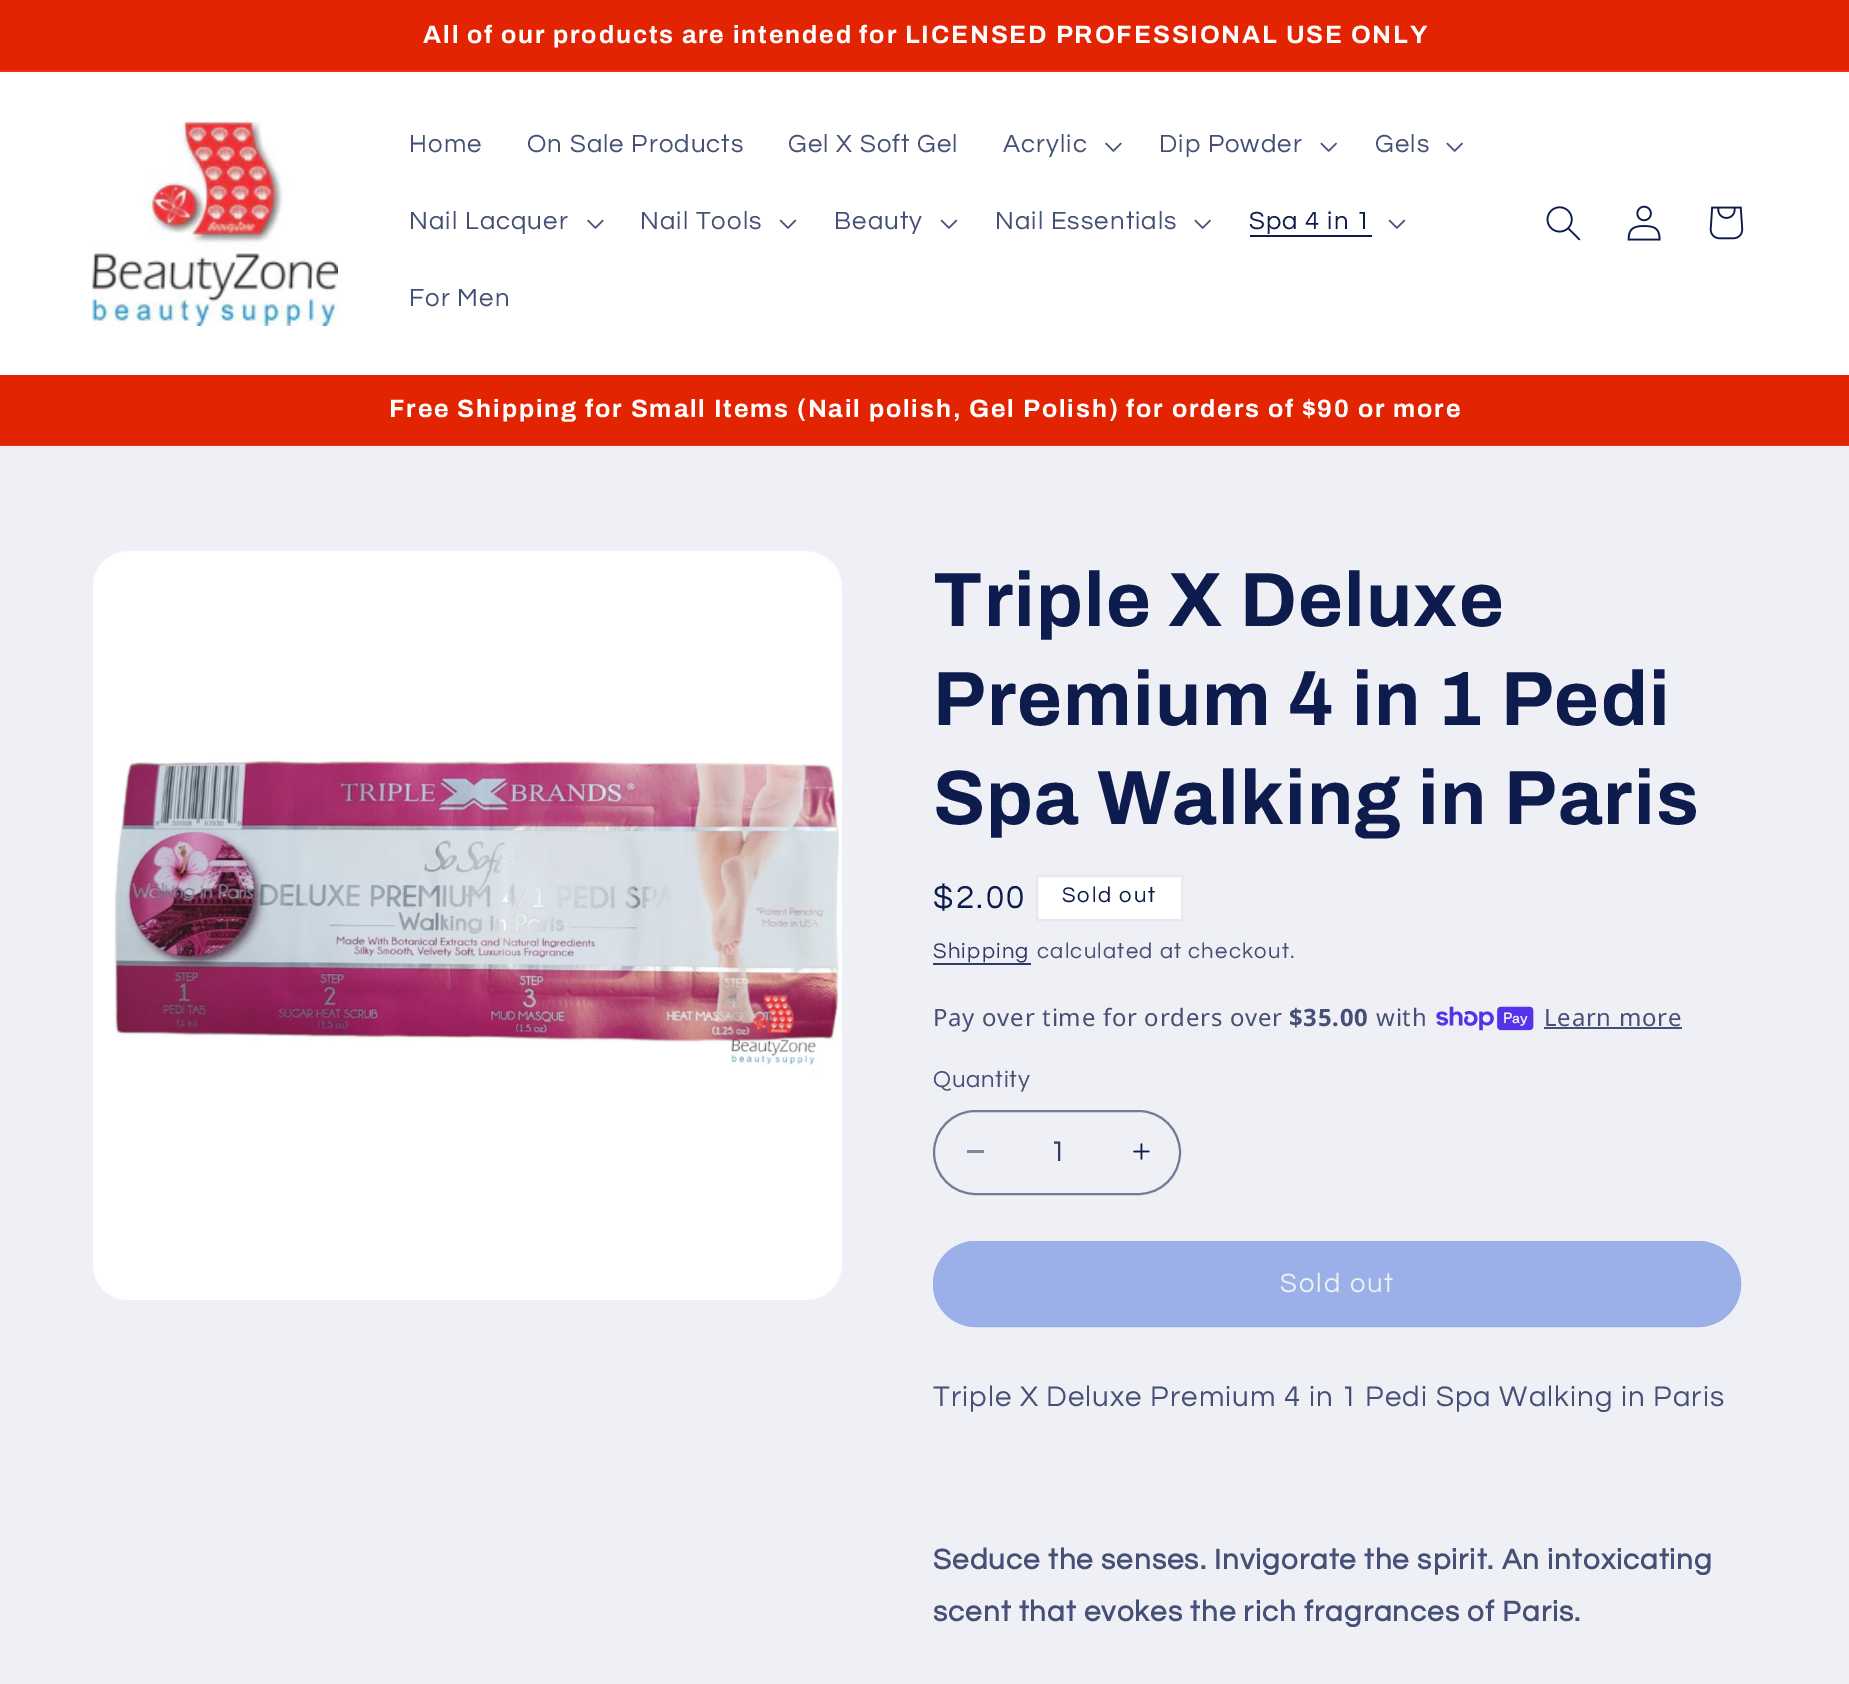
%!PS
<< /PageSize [1849 1684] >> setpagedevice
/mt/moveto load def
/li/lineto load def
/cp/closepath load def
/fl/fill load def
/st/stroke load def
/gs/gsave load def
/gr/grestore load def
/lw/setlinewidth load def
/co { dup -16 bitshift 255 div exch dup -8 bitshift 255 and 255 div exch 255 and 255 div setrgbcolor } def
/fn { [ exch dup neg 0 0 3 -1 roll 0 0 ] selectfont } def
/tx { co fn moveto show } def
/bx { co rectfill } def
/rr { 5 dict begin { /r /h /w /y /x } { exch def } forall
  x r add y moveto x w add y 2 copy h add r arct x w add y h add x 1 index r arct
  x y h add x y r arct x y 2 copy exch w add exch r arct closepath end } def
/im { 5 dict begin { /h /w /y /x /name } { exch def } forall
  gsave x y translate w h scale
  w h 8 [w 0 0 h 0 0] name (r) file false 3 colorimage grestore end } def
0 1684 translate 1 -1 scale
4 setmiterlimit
0 0 1849 1684 16#EFF0F5 bx
0 0 1849 70 16#E32402 bx
0 70 1849 2 16#E53616 bx
0 72 1849 303 16#FFFFFF bx
(media/1.raw) 92 120 246 206 im
(media/2.raw) 1105 142 17 10 im
(media/3.raw) 1320 142 17 10 im
(media/3.raw) 1446 142 17 10 im
(media/2.raw) 587 219 17 10 im
(media/4.raw) 779 219 18 10 im
(media/4.raw) 940 219 18 10 im
(media/3.raw) 1194 219 17 10 im
1250 235 122 2 16#0E1B4D bx
(media/4.raw) 1388 219 18 10 im
(media/5.raw) 1546 206 35 35 im
(media/6.raw) 1627 205 34 36 im
(media/7.raw) 1709 206 35 34 im
0 375 1849 70 16#E32402 bx
0 445 1849 1 16#E53616 bx
(media/8.raw) 93 551 749 749 im
16#FFFFFF co
1037 876 mt 1182 876 li 1182 920 li 1037 920 li cp gs fl gr
16#E7E8ED co
2 lw
st
933 963 98 2 16#303B66 bx
(media/9.raw) 1436 1006 98 25 im
1544 1027 138 2 16#465077 bx
967 1150 17 3 16#7F86A1 bx
(media/10.raw) 1133 1143 17 17 im
16#737B99 co
934 1111 246 83 41.5 rr st
16#9BB0E8 co
933 1241 808 86 43 rr fl
934 1242 806 84 42 rr st
/Archivo-Bold 25.05 fn
16#FFFFFF co
423 43 mt 1.85 0 (All of our products are intended for LICENSED PROFESSIONAL USE ONLY) ashow
/Questrial-Regular 25.75 fn
16#465077 co
409 152 mt 1.1 0 (Home) ashow
527 152 mt 1.1 0 (On Sale Products) ashow
788 152 mt 1.1 0 (Gel X Soft Gel) ashow
1003 152 mt 1.1 0 (Acrylic) ashow
1159 152 mt 1.1 0 (Dip Powder) ashow
1375 152 mt 1.1 0 (Gels) ashow
409 229 mt 1.1 0 (Nail Lacquer) ashow
640 229 mt 1.1 0 (Nail Tools) ashow
834 229 mt 1.1 0 (Beauty) ashow
995 229 mt 1.1 0 (Nail Essentials) ashow
16#0E1B4D co
1249 229 mt 1.1 0 (Spa 4 in 1) ashow
16#465077 co
409 306 mt 1.1 0 (For Men) ashow
/Archivo-Bold 25.05 fn
16#FFFFFF co
389 417 mt 1.85 0 (Free Shipping for Small Items \(Nail polish, Gel Polish\) for orders of $90 or more) ashow
/Archivo-Bold 77 fn
16#0E1B4D co
933 626 mt 1.2 0 (Triple X Deluxe) ashow
933 725 mt 1.2 0 (Premium 4 in 1 Pedi) ashow
933 824 mt 1.2 0 (Spa Walking in Paris) ashow
/Questrial-Regular 33 fn
933 908 mt 2.5 0 ($2.00) ashow
/Questrial-Regular 22 fn
1062 902 mt 1.85 0 (Sold out) ashow
16#303B66 co
933 958 mt 1.25 0 (Shipping) ashow
16#465077 co
1037 958 mt 1.25 0 (calculated at checkout.) ashow
/NotoSans-Regular 23.9 fn
933 1026 mt .75 0 (Pay over time for orders over) ashow
/NotoSans-Bold 23.9 fn
1289 1026 mt .75 0 ($35.00) ashow
/NotoSans-Regular 23.9 fn
1376 1026 mt .75 0 (with) ashow
1544 1026 mt .75 0 (Learn more) ashow
/Questrial-Regular 23.9 fn
933 1087 mt .75 0 (Quantity) ashow
(1) 1050 1161 /Questrial-Regular 29.4 16#303B66 tx
/Questrial-Regular 27.5 fn
16#EFF0F5 co
1280 1292 mt 1.85 0 (Sold out) ashow
/Questrial-Regular 29.4 fn
16#465077 co
933 1406 mt 1.1 0 (Triple X Deluxe Premium 4 in 1 Pedi Spa Walking in Paris) ashow
/Questrial-Bold 29.4 fn
933 1569 mt 1.1 0 (Seduce the senses. Invigorate the spirit. An intoxicating) ashow
933 1621 mt 1.1 0 (scent that evokes the rich fragrances of Paris.) ashow
showpage
